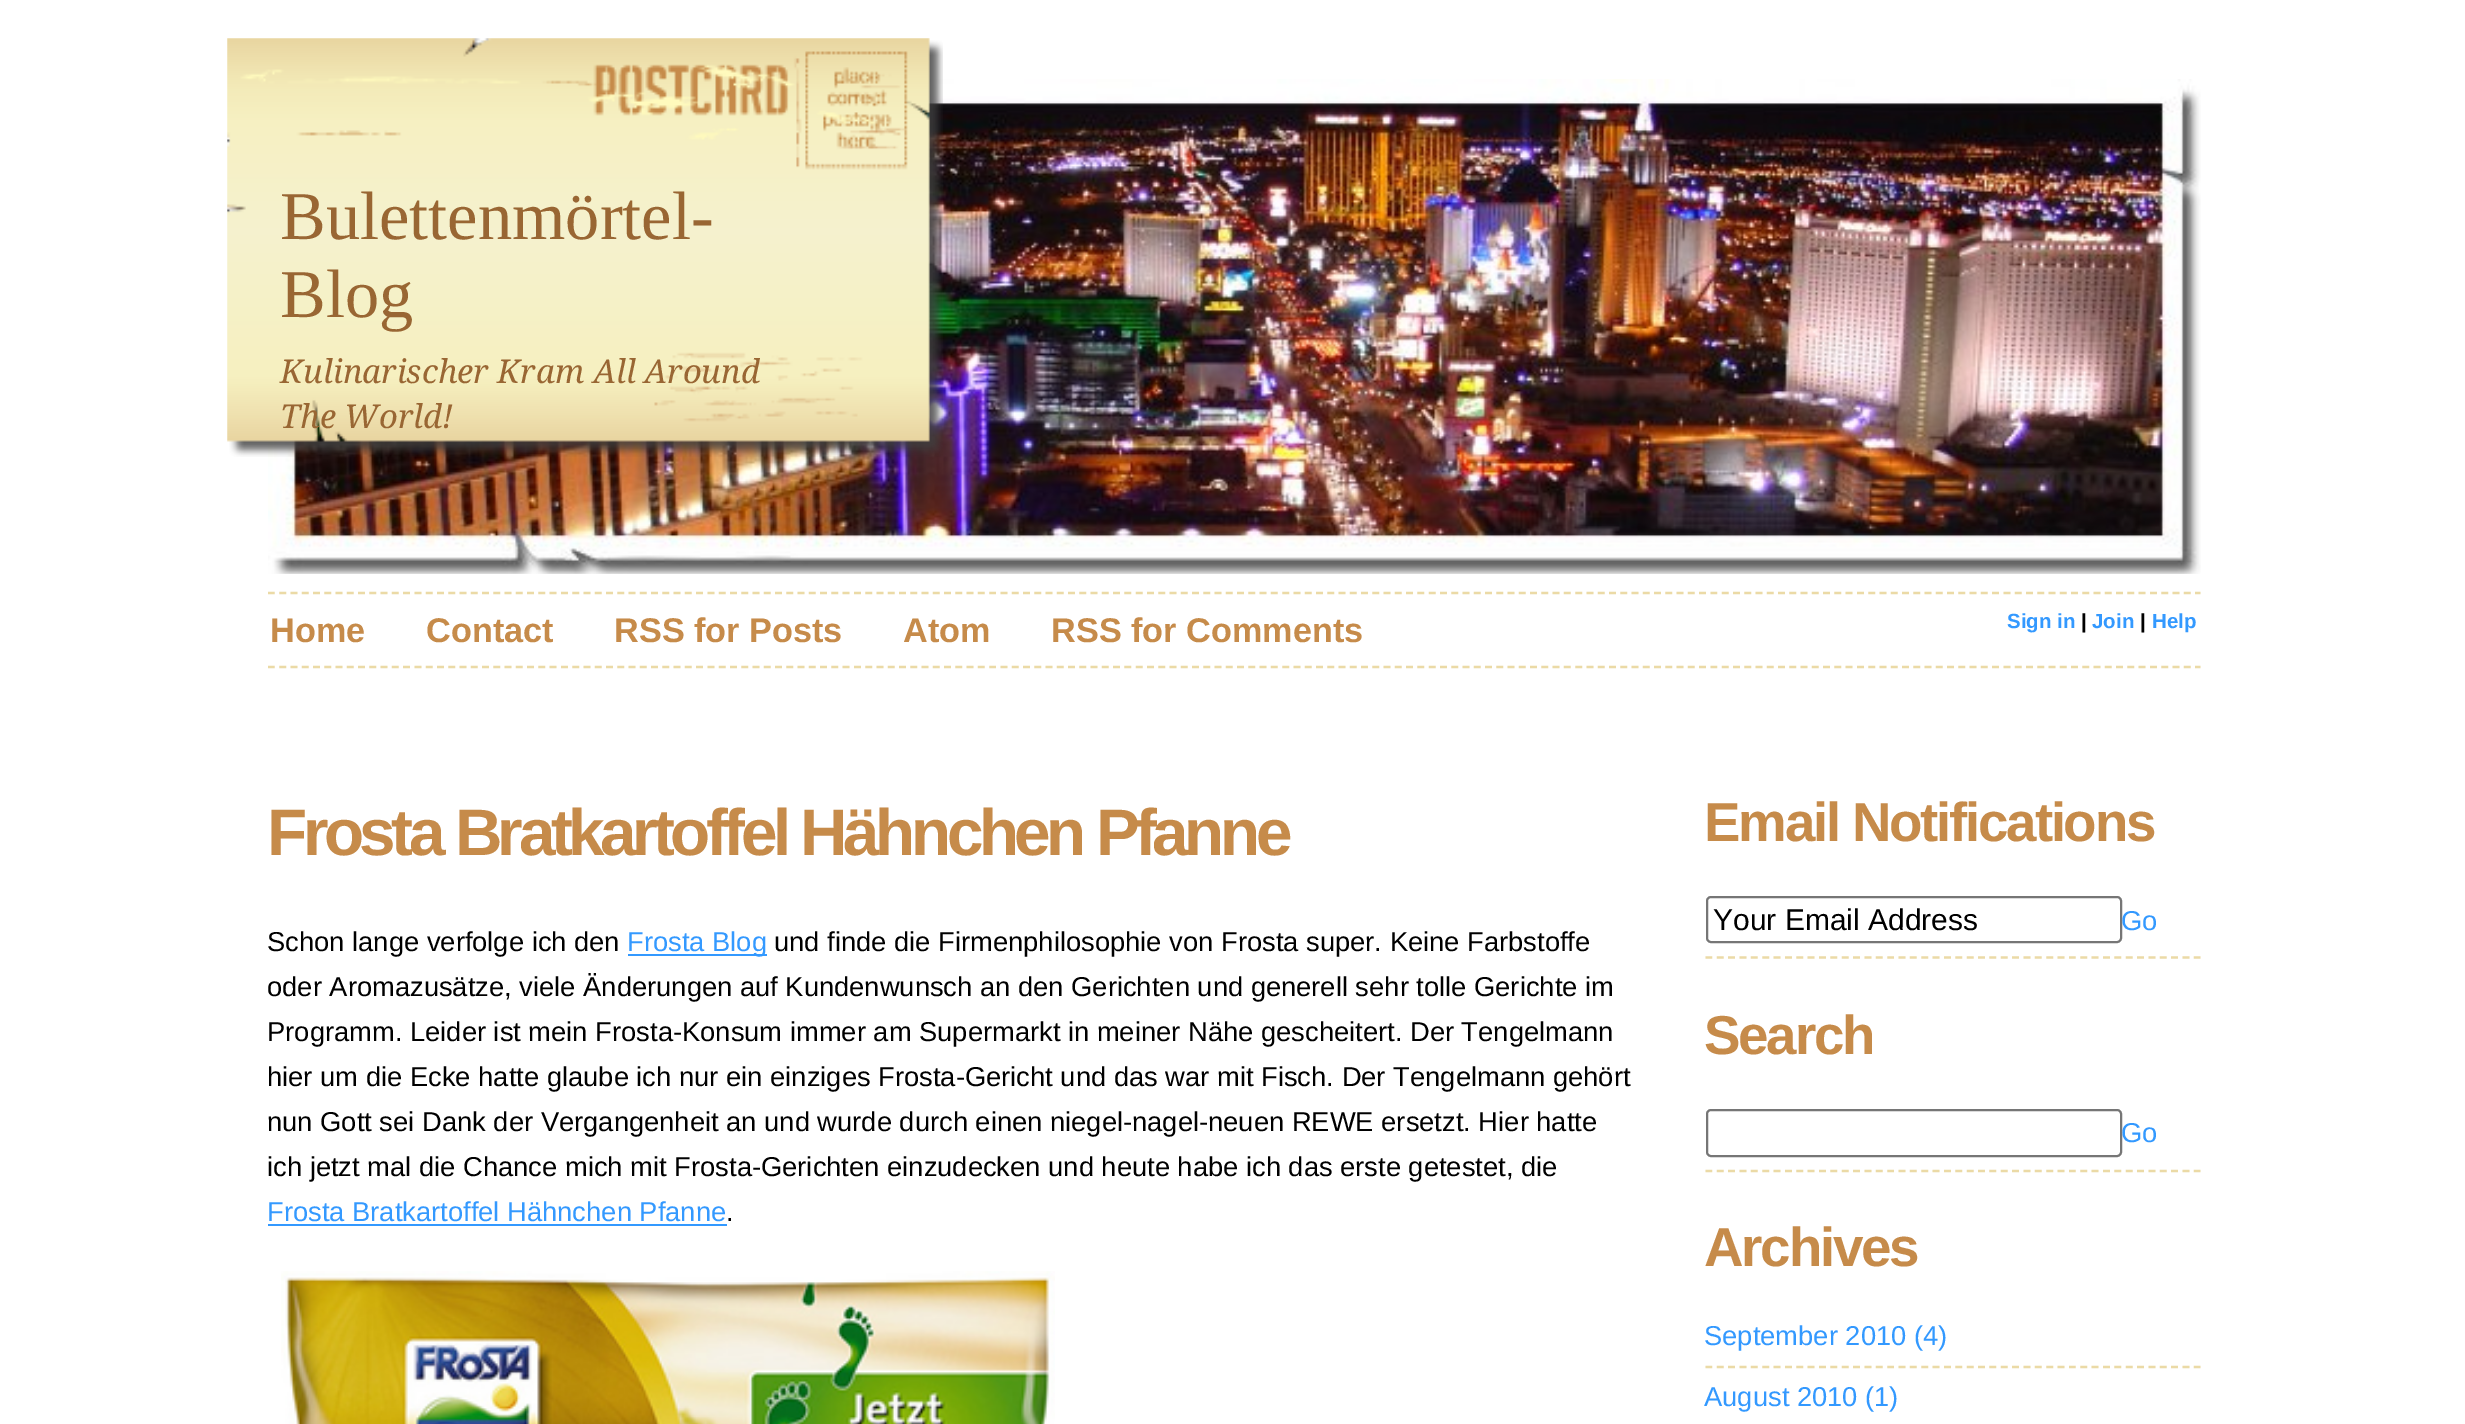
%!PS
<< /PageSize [2465 1424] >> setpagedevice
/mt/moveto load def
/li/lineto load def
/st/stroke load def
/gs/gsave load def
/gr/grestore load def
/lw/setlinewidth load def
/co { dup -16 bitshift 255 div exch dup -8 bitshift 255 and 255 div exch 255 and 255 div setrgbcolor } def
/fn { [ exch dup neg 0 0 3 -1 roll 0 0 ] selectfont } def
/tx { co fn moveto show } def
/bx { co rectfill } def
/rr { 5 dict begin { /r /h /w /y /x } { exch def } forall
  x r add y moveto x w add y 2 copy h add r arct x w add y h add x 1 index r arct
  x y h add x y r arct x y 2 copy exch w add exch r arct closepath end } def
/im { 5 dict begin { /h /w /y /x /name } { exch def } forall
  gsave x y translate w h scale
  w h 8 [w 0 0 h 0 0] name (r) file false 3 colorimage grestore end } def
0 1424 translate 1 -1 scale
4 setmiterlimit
0 0 2465 1424 16#FFFFFF bx
(media/1.raw) 268 79 1933 495 im
(media/2.raw) 227 38 716 419 im
16#EBDAA6 co
2.2 lw
[6.75 4.52] 0 setdash
268 593 mt 2200.5 593 li st
268 667 mt 2200.5 667 li st
628 954 139 2 16#3399FF bx
268 1224 459 2 16#3399FF bx
(media/3.raw) 281 1271 774 153 im
16#EBDAA6 co
[6.75 4.61] 0 setdash
1705.5 957.5 mt 2200.5 957.5 li st
16#767676 co
2 lw
[] 0 setdash
1707 897 414 45 4 rr st
16#EBDAA6 co
2.2 lw
[6.75 4.61] 0 setdash
1705.5 1171 mt 2200.5 1171 li st
16#767676 co
2 lw
[] 0 setdash
1707 1110 414 46 4 rr st
16#EBDAA6 co
2.2 lw
[6.75 4.61] 0 setdash
1705.5 1367 mt 2200.5 1367 li st
(Bulettenmörtel-) 280 239 /LiberationSerif-Regular 68.5 16#996633 tx
(Blog) 280 317 /LiberationSerif-Regular 68.5 16#996633 tx
(Kulinarischer Kram All Around) 280 383 /NotoSerif-Italic 32.8 16#996633 tx
(The World!) 280 428 /NotoSerif-Italic 32.8 16#996633 tx
(Home) 270 642 /LiberationSans-Bold 34.25 16#C68B4A tx
(Contact) 426 642 /LiberationSans-Bold 34.25 16#C68B4A tx
(RSS for Posts) 614 642 /LiberationSans-Bold 34.25 16#C68B4A tx
(Atom) 903 642 /LiberationSans-Bold 34.25 16#C68B4A tx
(RSS for Comments) 1051 642 /LiberationSans-Bold 34.25 16#C68B4A tx
(Sign in) 2007 628 /LiberationSans-Bold 20.5 16#3399FF tx
(|) 2081 628 /LiberationSans-Bold 20.5 16#000000 tx
(Join) 2092 628 /LiberationSans-Bold 20.5 16#3399FF tx
(|) 2140 628 /LiberationSans-Bold 20.5 16#000000 tx
(Help) 2152 628 /LiberationSans-Bold 20.5 16#3399FF tx
/LiberationSans-Bold 65.7 fn
16#C68B4A co
267 855 mt -4.5 0 (Frosta Bratkartoffel Hähnchen Pfanne) ashow
(Schon lange verfolge ich den) 267 951 /LiberationSans-Regular 27.35 16#000000 tx
(Frosta Blog) 627 951 /LiberationSans-Regular 27.35 16#3399FF tx
(und finde die Firmenphilosophie von Frosta super. Keine Farbstoffe) 774 951 /LiberationSans-Regular 27.35 16#000000 tx
gs
268 702 1370 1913 rectclip
(oder Aromazusätze, viele Änderungen auf Kundenwunsch an den Gerichten und generell sehr tolle Gerichte im) 267 996 /LiberationSans-Regular 27.35 16#000000 tx
gr
(Programm. Leider ist mein Frosta-Konsum immer am Supermarkt in meiner Nähe gescheitert. Der Tengelmann) 267 1041 /LiberationSans-Regular 27.35 16#000000 tx
(hier um die Ecke hatte glaube ich nur ein einziges Frosta-Gericht und das war mit Fisch. Der Tengelmann gehört) 267 1086 /LiberationSans-Regular 27.35 16#000000 tx
(nun Gott sei Dank der Vergangenheit an und wurde durch einen niegel-nagel-neuen REWE ersetzt. Hier hatte) 267 1131 /LiberationSans-Regular 27.35 16#000000 tx
(ich jetzt mal die Chance mich mit Frosta-Gerichten einzudecken und heute habe ich das erste getestet, die) 267 1176 /LiberationSans-Regular 27.35 16#000000 tx
(Frosta Bratkartoffel Hähnchen Pfanne) 267 1221 /LiberationSans-Regular 27.35 16#3399FF tx
(.) 726 1221 /LiberationSans-Regular 27.35 16#000000 tx
/LiberationSans-Bold 54.75 fn
16#C68B4A co
1704 841 mt -2.25 0 (Email Notifications) ashow
(Your Email Address) 1713 930 /LiberationSans-Regular 30 16#000000 tx
(Go) 2121 930 /LiberationSans-Regular 27.35 16#3399FF tx
/LiberationSans-Bold 54.75 fn
16#C68B4A co
1704 1054 mt -2.25 0 (Search) ashow
(Go) 2121 1142 /LiberationSans-Regular 27.35 16#3399FF tx
/LiberationSans-Bold 54.75 fn
16#C68B4A co
1704 1266 mt -2.25 0 (Archives) ashow
(September 2010 \(4\)) 1704 1345 /LiberationSans-Regular 27.35 16#3399FF tx
(August 2010 \(1\)) 1704 1406 /LiberationSans-Regular 27.35 16#3399FF tx
showpage
